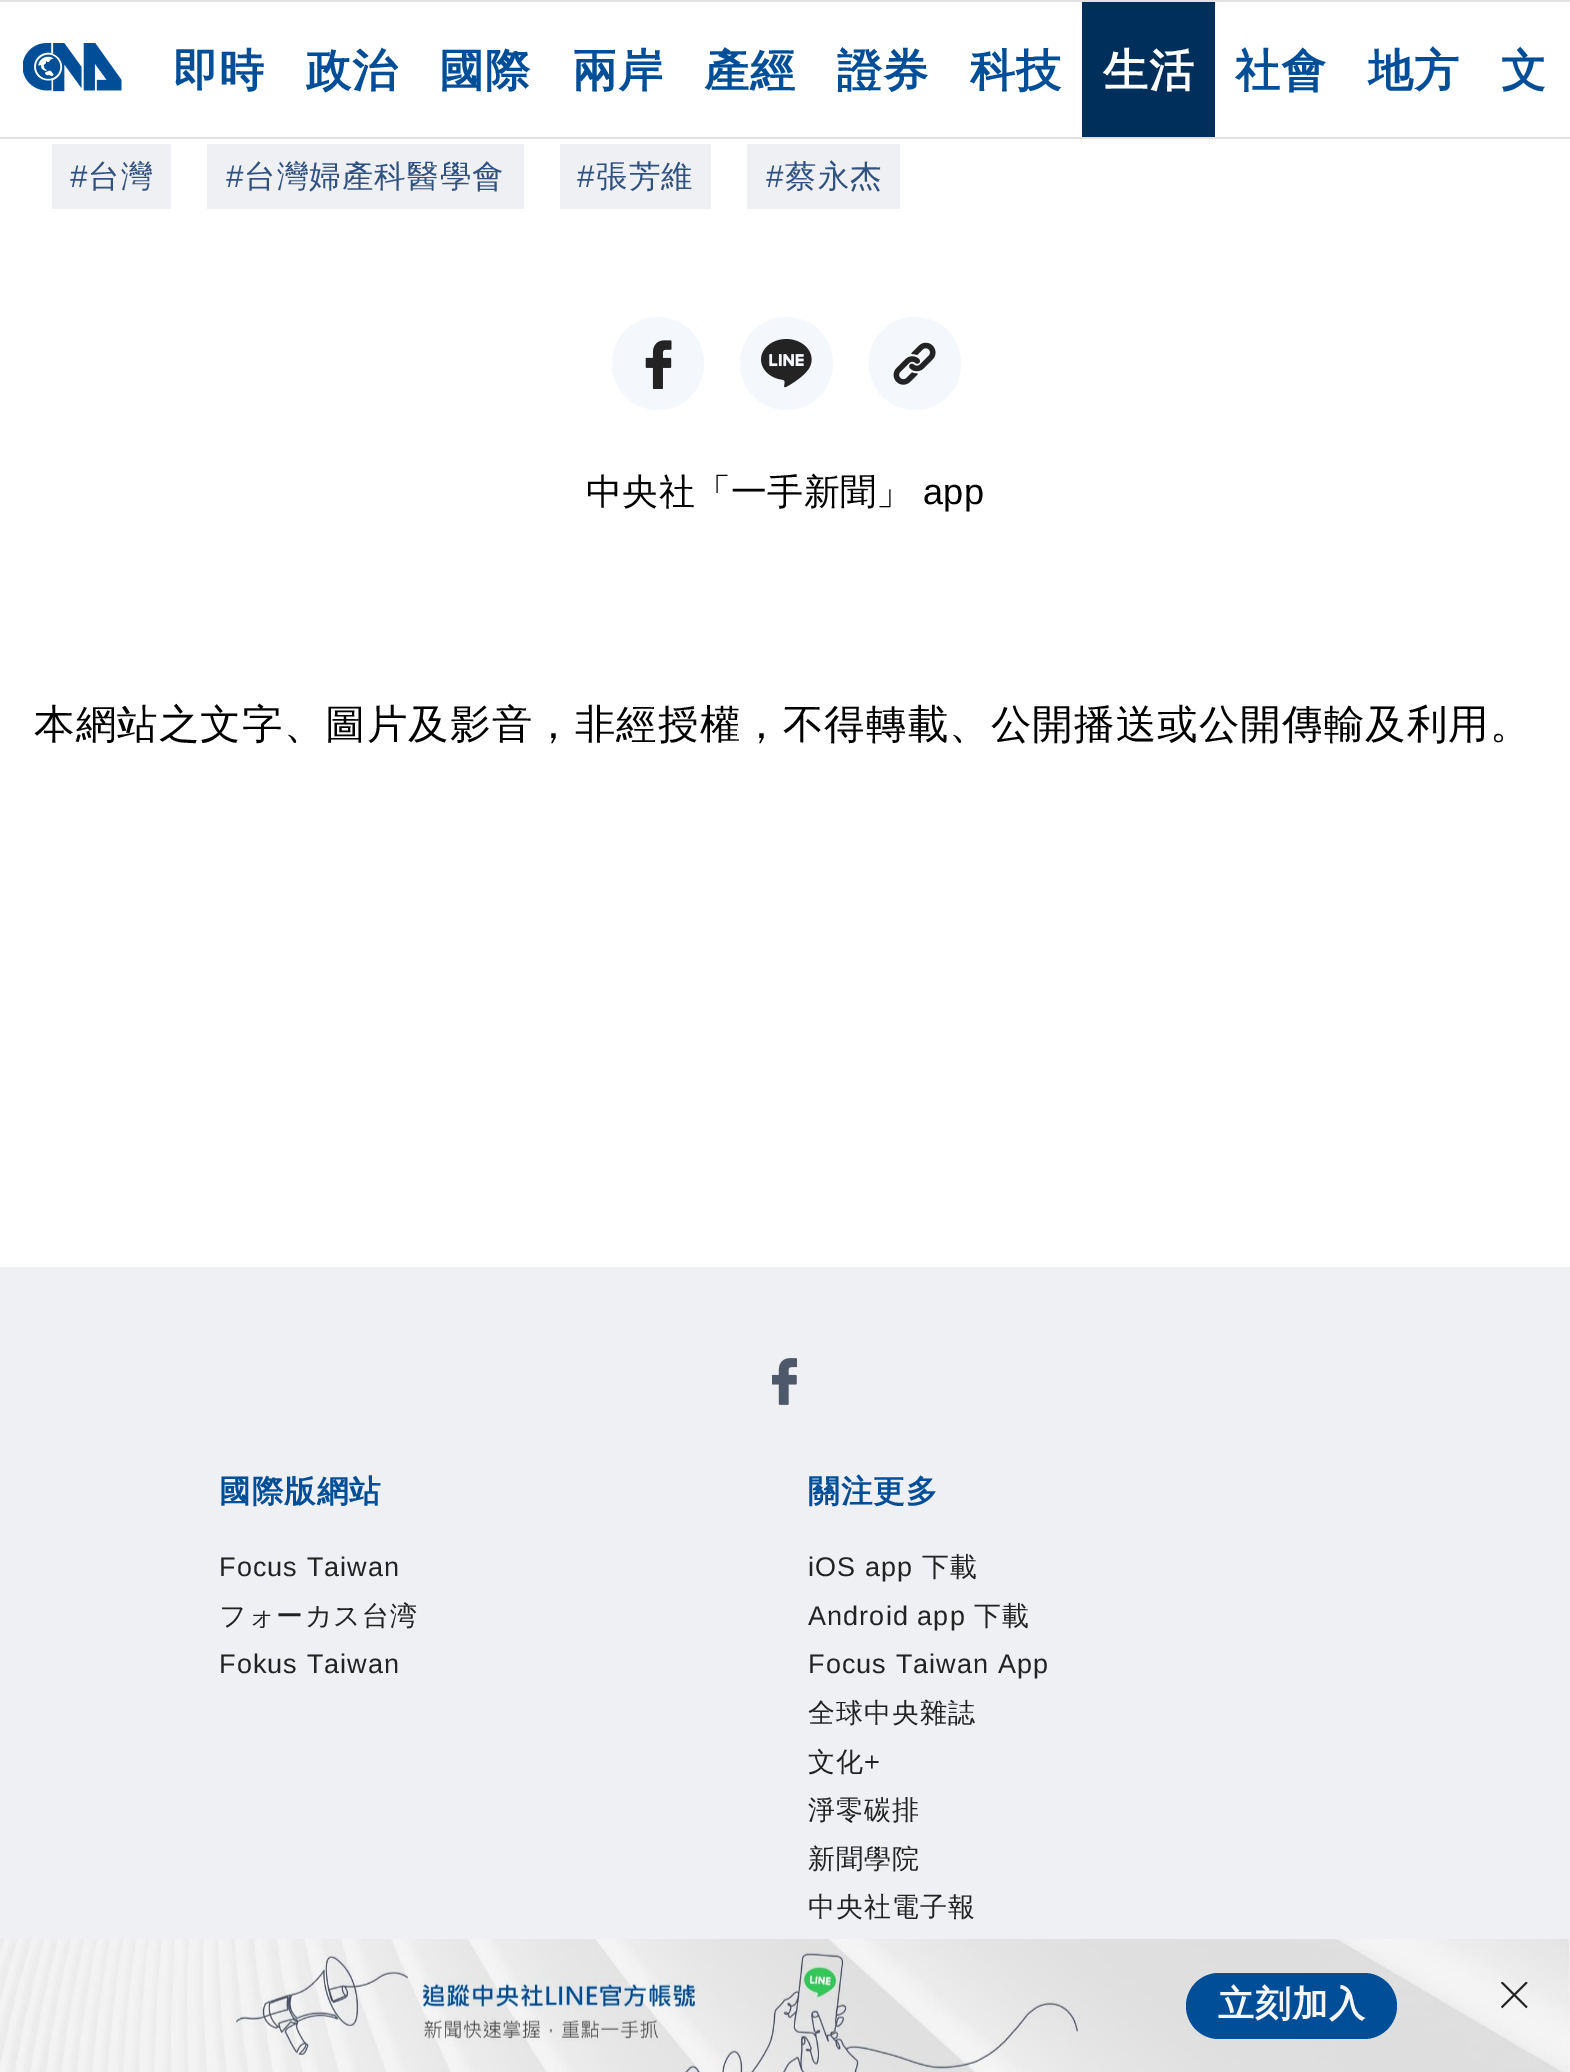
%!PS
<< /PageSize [1570 2072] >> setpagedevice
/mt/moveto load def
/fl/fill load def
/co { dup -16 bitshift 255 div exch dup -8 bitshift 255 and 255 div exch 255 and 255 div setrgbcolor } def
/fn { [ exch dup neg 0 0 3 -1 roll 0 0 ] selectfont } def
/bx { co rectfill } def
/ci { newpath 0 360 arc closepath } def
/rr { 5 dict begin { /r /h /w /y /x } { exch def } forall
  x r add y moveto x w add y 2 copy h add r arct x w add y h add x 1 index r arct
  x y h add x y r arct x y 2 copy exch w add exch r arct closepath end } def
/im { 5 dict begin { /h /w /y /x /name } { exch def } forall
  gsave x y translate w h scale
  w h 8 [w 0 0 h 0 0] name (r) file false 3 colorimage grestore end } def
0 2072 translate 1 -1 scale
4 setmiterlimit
0 0 1570 2072 16#FFFFFF bx
0 0 1570 2 16#E1E1E1 bx
0 137 1570 2 16#E1E1E1 bx
(media/1.raw) 23 43 99 49 im
1082 2 133 135 16#002F5B bx
52 144 119 65 16#EEF0F3 bx
207 144 317 65 16#EEF0F3 bx
560 144 151 65 16#EEF0F3 bx
747 144 153 65 16#EEF0F3 bx
16#F4F7FC co
612 317 92 93 46 rr fl
(media/2.raw) 645 340 27 49 im
786.5 363.5 46.5 ci fl
(media/3.raw) 761 339 51 49 im
869 317 92 93 46 rr fl
(media/4.raw) 893 342 43 43 im
0 1267 1570 672 16#EEF0F3 bx
(media/5.raw) 772 1358 26 47 im
(media/6.raw) 0 1939 1570 133 im
16#004E98 co
1186 1973 211 66 33 rr fl
(media/7.raw) 1501 1982 27 27 im
/WenQuanYiZenHei-Bold 45 fn
173 86 mt 1.1 0 (即時) ashow
306 86 mt 1.1 0 (政治) ashow
439 86 mt 1.1 0 (國際) ashow
572 86 mt 1.1 0 (兩岸) ashow
704 86 mt 1.1 0 (產經) ashow
837 86 mt 1.1 0 (證券) ashow
970 86 mt 1.1 0 (科技) ashow
16#FFFFFF co
1103 86 mt 1.1 0 (生活) ashow
16#004E98 co
1235 86 mt 1.1 0 (社會) ashow
1368 86 mt 1.1 0 (地方) ashow
1501 86 mt 1.1 0 (文) ashow
/LiberationSans-Regular 31.5 fn
16#315280 co
70 187 mt 1.1 0 (#) ashow
/WenQuanYiZenHei-Medium 31.5 fn
88 187 mt 1.1 0 (台灣) ashow
/LiberationSans-Regular 31.5 fn
226 187 mt 1.1 0 (#) ashow
/WenQuanYiZenHei-Medium 31.5 fn
244 187 mt 1.1 0 (台灣婦產科醫學會) ashow
/LiberationSans-Regular 31.5 fn
577 187 mt 1.1 0 (#) ashow
/WenQuanYiZenHei-Medium 31.5 fn
596 187 mt 1.1 0 (張芳維) ashow
/LiberationSans-Regular 31.5 fn
766 187 mt 1.1 0 (#) ashow
/WenQuanYiZenHei-Medium 31.5 fn
785 187 mt 1.1 0 (蔡永杰) ashow
/WenQuanYiZenHei-Medium 36 fn
16#000000 co
586 504 mt .25 0 (中央社「一手新聞」) ashow
/LiberationSans-Regular 36 fn
923 504 mt .25 0 (app) ashow
/WenQuanYiZenHei-Medium 40.5 fn
34 738 mt 1.1 0 (本網站之文字、圖片及影音，非經授權，不得轉載、公開播送或公開傳輸及利用。) ashow
/WenQuanYiZenHei-Bold 31.5 fn
16#004E98 co
219 1502 mt 1.1 0 (國際版網站) ashow
/LiberationSans-Regular 27 fn
16#232323 co
219 1576 mt 1.1 0 (Focus Taiwan) ashow
/WenQuanYiZenHei-Medium 27 fn
219 1625 mt 1.1 0 (フォーカス台湾) ashow
/LiberationSans-Regular 27 fn
219 1673 mt 1.1 0 (Fokus Taiwan) ashow
/WenQuanYiZenHei-Bold 31.5 fn
16#004E98 co
808 1502 mt 1.1 0 (關注更多) ashow
/LiberationSans-Regular 27 fn
16#232323 co
808 1576 mt 1.1 0 (iOS app) ashow
/WenQuanYiZenHei-Medium 27 fn
922 1576 mt 1.1 0 (下載) ashow
/LiberationSans-Regular 27 fn
808 1625 mt 1.1 0 (Android app) ashow
/WenQuanYiZenHei-Medium 27 fn
974 1625 mt 1.1 0 (下載) ashow
/LiberationSans-Regular 27 fn
808 1673 mt 1.1 0 (Focus Taiwan App) ashow
/WenQuanYiZenHei-Medium 27 fn
808 1722 mt 1.1 0 (全球中央雜誌) ashow
808 1771 mt 1.1 0 (文化) ashow
/LiberationSans-Regular 27 fn
864 1771 mt 1.1 0 (+) ashow
/WenQuanYiZenHei-Medium 27 fn
808 1819 mt 1.1 0 (淨零碳排) ashow
808 1868 mt 1.1 0 (新聞學院) ashow
808 1916 mt 1.1 0 (中央社電子報) ashow
/WenQuanYiZenHei-Bold 36 fn
16#F6F6F6 co
1218 2016 mt 1.1 0 (立刻加入) ashow
showpage
